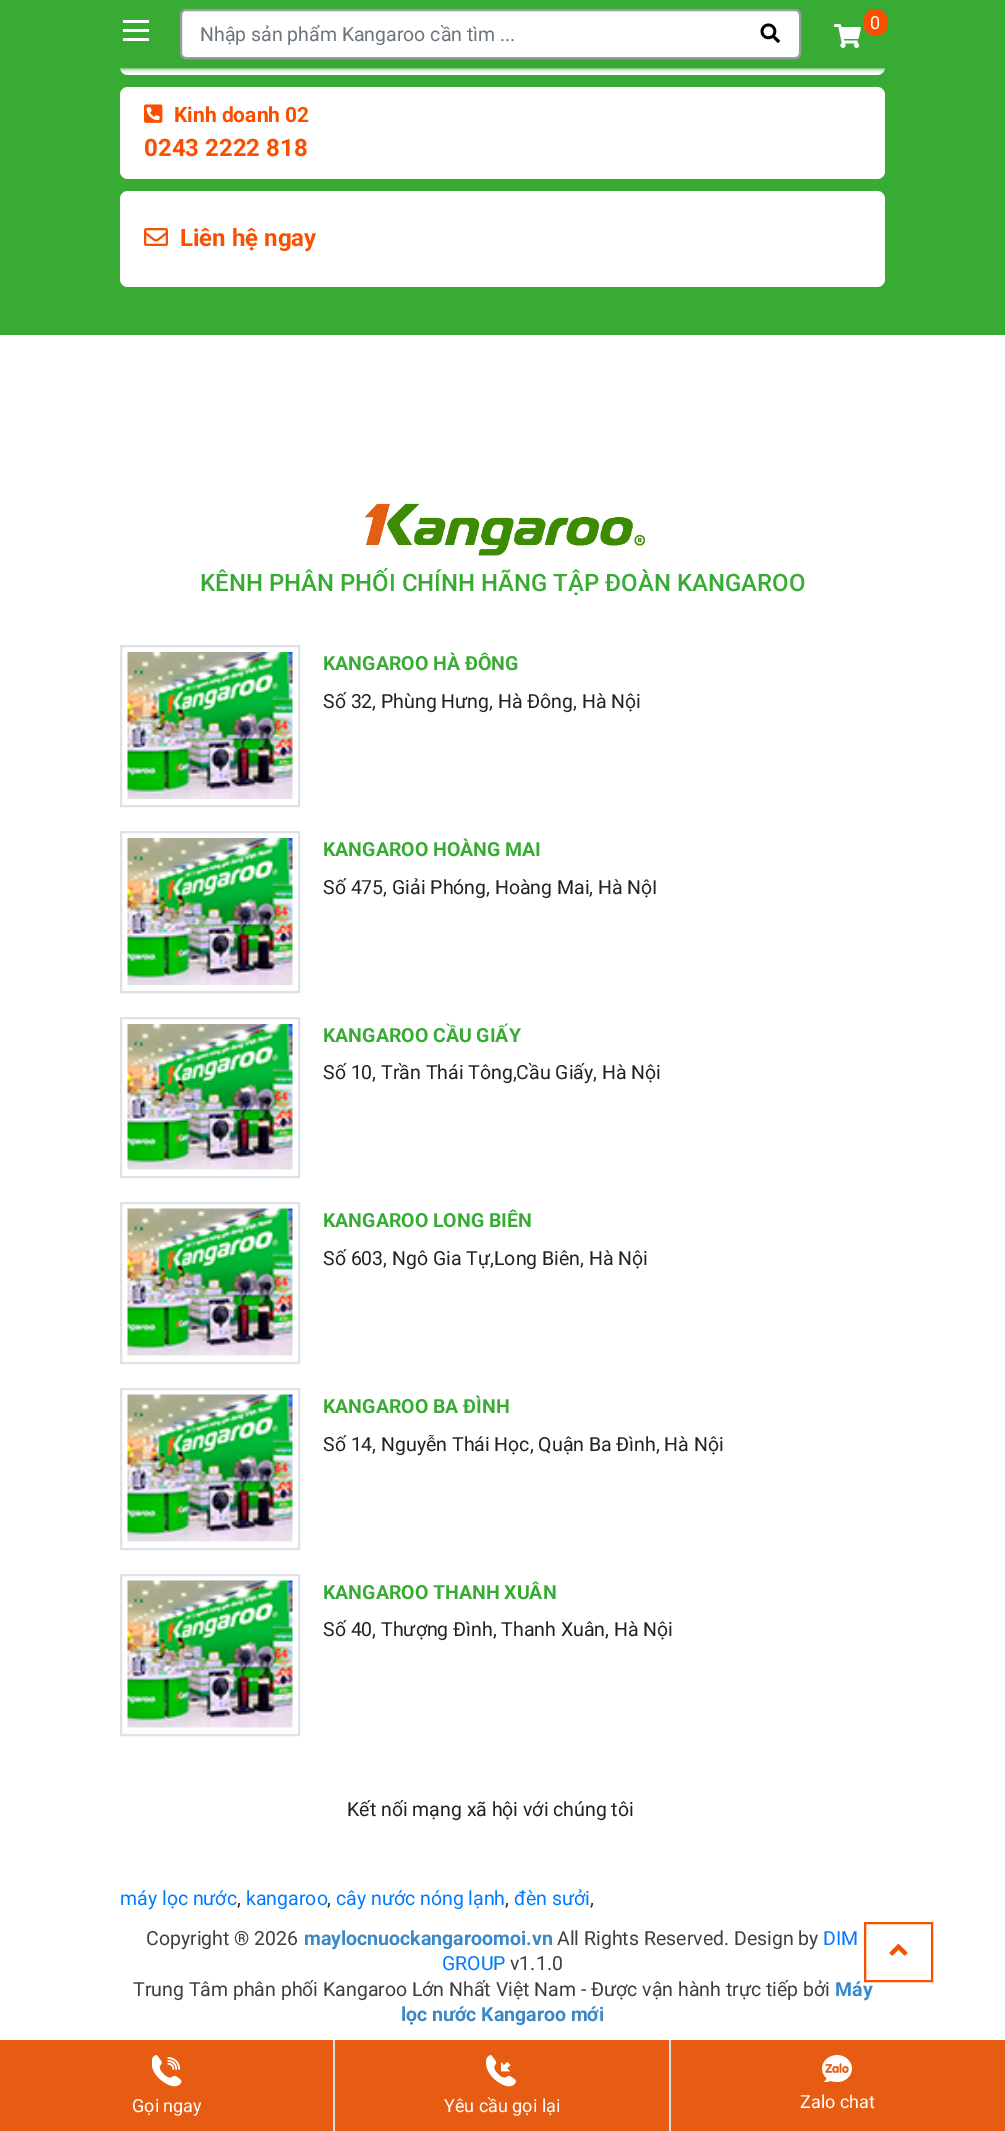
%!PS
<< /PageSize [1005 2131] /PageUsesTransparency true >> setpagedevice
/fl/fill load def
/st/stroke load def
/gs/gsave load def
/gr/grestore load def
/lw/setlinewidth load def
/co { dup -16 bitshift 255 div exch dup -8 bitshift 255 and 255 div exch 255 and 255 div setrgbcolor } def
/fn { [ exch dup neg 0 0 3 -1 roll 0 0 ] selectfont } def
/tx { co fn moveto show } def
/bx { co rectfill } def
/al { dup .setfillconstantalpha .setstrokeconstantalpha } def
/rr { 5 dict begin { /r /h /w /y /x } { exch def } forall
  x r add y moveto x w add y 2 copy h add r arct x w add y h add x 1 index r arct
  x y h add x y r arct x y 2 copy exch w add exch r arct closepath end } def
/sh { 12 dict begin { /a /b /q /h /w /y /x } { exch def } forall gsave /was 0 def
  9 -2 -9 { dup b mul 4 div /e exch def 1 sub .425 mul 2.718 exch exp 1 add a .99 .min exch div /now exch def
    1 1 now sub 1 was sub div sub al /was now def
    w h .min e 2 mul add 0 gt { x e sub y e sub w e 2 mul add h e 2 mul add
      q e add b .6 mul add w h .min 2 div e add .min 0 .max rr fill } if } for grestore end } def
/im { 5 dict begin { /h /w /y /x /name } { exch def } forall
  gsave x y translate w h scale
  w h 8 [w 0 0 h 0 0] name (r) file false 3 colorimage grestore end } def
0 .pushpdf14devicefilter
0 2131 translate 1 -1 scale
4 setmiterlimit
0 0 1005 2131 16#FFFFFF bx
0 68 1005 267 16#38AB35 bx
16#FFFFFF co
120 -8 765 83 8 rr fl
16#38AB35 co
0 -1 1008 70 0 2 1 sh
0 0 1005 68 16#38AB35 bx
123 20 26 3 16#FFFFFF bx
123 29 26 3 16#FFFFFF bx
123 38 26 3 16#FFFFFF bx
181 10 619 48 5 rr gs fl gr
16#9A9EA1 co
2 lw
st
(media/1.raw) 760 23 20 20 im
(media/2.raw) 834 24 27 24 im
16#F94F01 co
863 9 25 27 12.5 rr fl
16#FFFFFF co
120 87 765 92 8 rr fl
(media/3.raw) 144 104 19 19 im
120 191 765 96 8 rr fl
(media/4.raw) 144 228 24 18 im
(media/5.raw) 365 503 280 53 im
16#DEE2E6 co
121 646 178 160 rectstroke
(media/6.raw) 127 652 166 147 im
121 832 178 160 rectstroke
(media/6.raw) 127 838 166 147 im
121 1018 178 159 rectstroke
(media/7.raw) 127 1024 166 146 im
121 1203 178 160 rectstroke
(media/8.raw) 127 1208 166 148 im
121 1389 178 160 rectstroke
(media/8.raw) 127 1394 166 148 im
121 1575 178 160 rectstroke
(media/8.raw) 127 1580 166 148 im
0 2040 1005 91 16#E65C13 bx
333 2040 2 91 16#DEE2E6 bx
(media/10.raw) 152 2055 30 32 im
669 2040 2 91 16#DEE2E6 bx
(media/11.raw) 486 2055 30 32 im
(media/12.raw) 822 2055 30 27 im
(Nhập sản phẩm Kangaroo cần tìm ...) 200 41 /Roboto-Regular 19.5 16#6C757D tx
(0) 870 29 /Roboto-Regular 18 16#FFFFFF tx
(Kinh doanh 02) 174 122 /Roboto-Bold 21 16#F94F01 tx
(0243 2222 818) 144 156 /Roboto-Bold 24 16#F94F01 tx
(Liên hệ ngay) 180 246 /Roboto-Bold 24 16#F94F01 tx
(KÊNH PHÂN PHỐI CHÍNH HÃNG TẬP ĐOÀN KANGAROO) 200 591 /Roboto-Medium 24 16#38AB35 tx
(KANGAROO HÀ ĐÔNG) 323 670 /Roboto-Bold 19.5 16#38AB35 tx
(Số 32, Phùng Hưng, Hà Đông, Hà Nội) 323 708 /Roboto-Regular 19.5 16#222222 tx
(KANGAROO HOÀNG MAI) 323 856 /Roboto-Bold 19.5 16#38AB35 tx
(Số 475, Giải Phóng, Hoàng Mai, Hà NộI) 323 894 /Roboto-Regular 19.5 16#222222 tx
(KANGAROO CẦU GIẤY) 323 1042 /Roboto-Bold 19.5 16#38AB35 tx
(Số 10, Trần Thái Tông,Cầu Giấy, Hà Nội) 323 1079 /Roboto-Regular 19.5 16#222222 tx
(KANGAROO LONG BIÊN) 323 1227 /Roboto-Bold 19.5 16#38AB35 tx
(Số 603, Ngô Gia Tự,Long Biên, Hà Nội) 323 1265 /Roboto-Regular 19.5 16#222222 tx
(KANGAROO BA ĐÌNH) 323 1413 /Roboto-Bold 19.5 16#38AB35 tx
(Số 14, Nguyễn Thái Học, Quận Ba Đình, Hà Nội) 323 1451 /Roboto-Regular 19.5 16#222222 tx
(KANGAROO THANH XUÂN) 323 1599 /Roboto-Bold 19.5 16#38AB35 tx
(Số 40, Thượng Đình, Thanh Xuân, Hà Nội) 323 1636 /Roboto-Regular 19.5 16#222222 tx
(Kết nối mạng xã hội với chúng tôi) 347 1816 /Roboto-Regular 19.5 16#222222 tx
(máy lọc nước) 120 1905 /Roboto-Regular 19.5 16#007BFF tx
(,) 237 1905 /Roboto-Regular 19.5 16#222222 tx
(kangaroo) 246 1905 /Roboto-Regular 19.5 16#007BFF tx
(,) 327 1905 /Roboto-Regular 19.5 16#222222 tx
(cây nước nóng lạnh) 336 1905 /Roboto-Regular 19.5 16#007BFF tx
(,) 505 1905 /Roboto-Regular 19.5 16#222222 tx
(đèn sưởi) 514 1905 /Roboto-Regular 19.5 16#007BFF tx
(,) 590 1905 /Roboto-Regular 19.5 16#222222 tx
(Copyright ® 2026) 146 1945 /Roboto-Regular 19.5 16#3E3E3E tx
(maylocnuockangaroomoi.vn) 304 1945 /Roboto-Bold 19.5 16#3B88C8 tx
(All Rights Reserved. Design by) 557 1945 /Roboto-Regular 19.5 16#3E3E3E tx
(DIM) 823 1945 /Roboto-Regular 19.5 16#007BFF tx
(GROUP) 442 1970 /Roboto-Regular 19.5 16#007BFF tx
(v1.1.0) 510 1970 /Roboto-Regular 19.5 16#3E3E3E tx
(Trung Tâm phân phối Kangaroo Lớn Nhất Việt Nam - Được vận hành trực tiếp bởi) 133 1996 /Roboto-Regular 19.5 16#3E3E3E tx
(Máy) 835 1996 /Roboto-Bold 19.5 16#3B88C8 tx
(lọc nước Kangaroo mới) 401 2021 /Roboto-Bold 19.5 16#3B88C8 tx
16#F94F01 co
865 1923 67 58 rectstroke
(media/9.raw) 889 1944 19 12 im
(Gọi ngay) 132 2112 /Roboto-Regular 18 16#FFFFFF tx
(Yêu cầu gọi lại) 444 2112 /Roboto-Regular 18 16#FFFFFF tx
(Zalo chat) 800 2108 /Roboto-Regular 18 16#FFFFFF tx
.poppdf14devicefilter showpage
